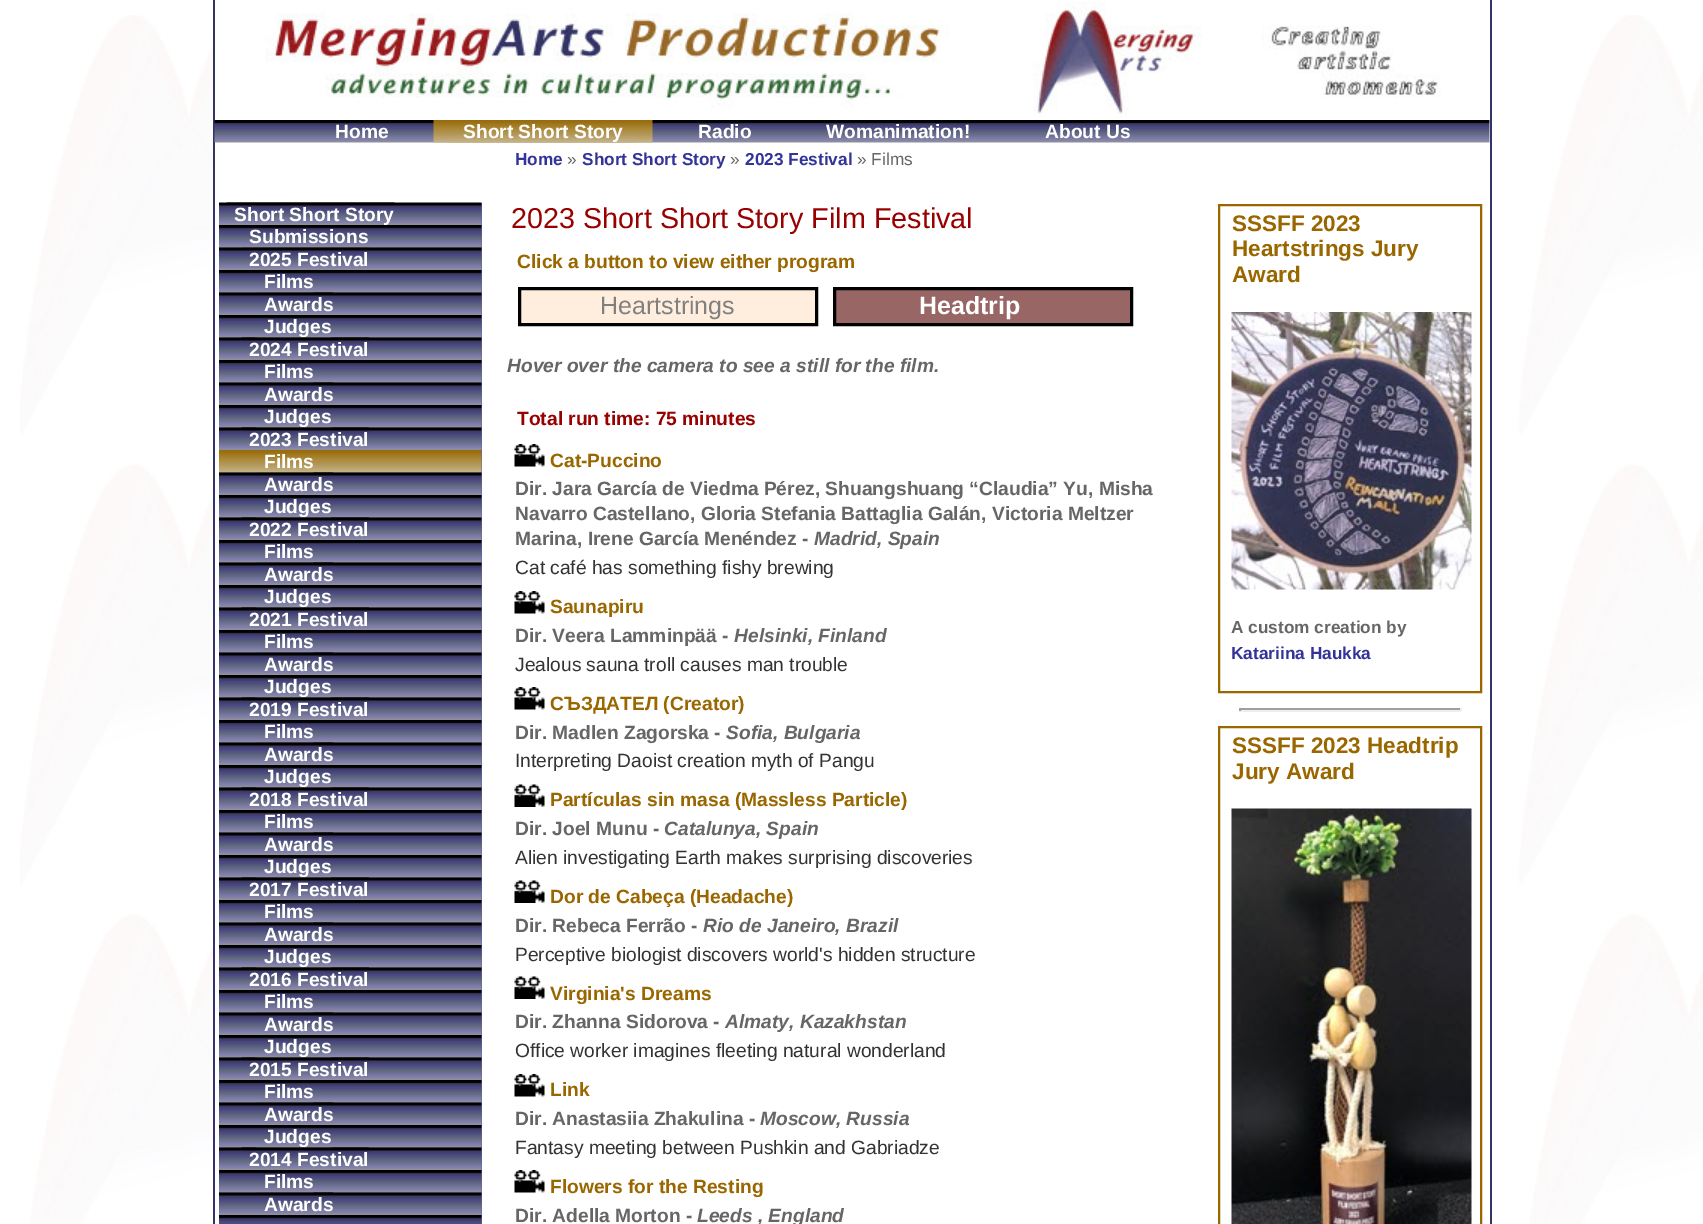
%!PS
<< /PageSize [1703 1224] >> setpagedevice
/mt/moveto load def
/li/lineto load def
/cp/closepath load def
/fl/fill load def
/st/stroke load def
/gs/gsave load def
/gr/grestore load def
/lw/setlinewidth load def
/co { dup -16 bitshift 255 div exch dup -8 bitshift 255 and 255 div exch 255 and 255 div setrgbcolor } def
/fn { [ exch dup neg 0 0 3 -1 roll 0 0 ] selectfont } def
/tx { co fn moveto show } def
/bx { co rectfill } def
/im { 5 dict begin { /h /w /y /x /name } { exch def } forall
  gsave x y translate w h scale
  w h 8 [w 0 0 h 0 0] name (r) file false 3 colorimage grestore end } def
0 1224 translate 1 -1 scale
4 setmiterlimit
0 0 1703 1224 16#FFFFFF bx
(media/1.raw) 20 15 1683 1209 im
215 15 1269 1209 16#FFFFFF bx
1490 0 2 1224 16#333366 bx
213 0 2 1224 16#333366 bx
(media/2.raw) 265 1 1176 116 im
(media/3.raw) 214 120 1276 23 im
(media/4.raw) 433 120 220 23 im
(media/5.raw) 448 142 190 1 im
219 203 263 1021 16#666699 bx
(media/6.raw) 219 202 263 23 im
(media/7.raw) 226 202 169 1 im
(media/8.raw) 219 225 263 23 im
(media/10.raw) 219 247 263 23 im
(media/9.raw) 241 247 128 1 im
(media/11.raw) 241 247 128 1 im
(media/8.raw) 219 270 263 23 im
(media/10.raw) 219 292 263 23 im
(media/12.raw) 256 292 58 1 im
(media/13.raw) 256 292 77 1 im
(media/8.raw) 219 315 263 23 im
(media/10.raw) 219 337 263 23 im
(media/14.raw) 256 337 76 1 im
(media/8.raw) 219 360 263 23 im
(media/10.raw) 219 382 263 23 im
(media/12.raw) 256 382 58 1 im
(media/13.raw) 256 382 77 1 im
(media/8.raw) 219 405 263 23 im
(media/10.raw) 219 427 263 23 im
(media/14.raw) 256 427 76 1 im
(media/16.raw) 219 450 263 23 im
(media/18.raw) 219 472 263 23 im
(media/17.raw) 256 472 58 1 im
(media/19.raw) 256 472 77 1 im
(media/8.raw) 219 495 263 23 im
(media/10.raw) 219 517 263 23 im
(media/14.raw) 256 517 76 1 im
(media/8.raw) 219 540 263 23 im
(media/10.raw) 219 562 263 23 im
(media/12.raw) 256 562 58 1 im
(media/13.raw) 256 562 77 1 im
(media/8.raw) 219 585 263 23 im
(media/10.raw) 219 607 263 23 im
(media/14.raw) 256 607 76 1 im
(media/8.raw) 219 630 263 23 im
(media/10.raw) 219 652 263 23 im
(media/12.raw) 256 652 58 1 im
(media/13.raw) 256 652 77 1 im
(media/8.raw) 219 675 263 23 im
(media/10.raw) 219 697 263 23 im
(media/14.raw) 256 697 76 1 im
(media/8.raw) 219 720 263 23 im
(media/10.raw) 219 742 263 23 im
(media/12.raw) 256 742 58 1 im
(media/13.raw) 256 742 77 1 im
(media/8.raw) 219 765 263 23 im
(media/10.raw) 219 787 263 23 im
(media/14.raw) 256 787 76 1 im
(media/8.raw) 219 810 263 23 im
(media/10.raw) 219 832 263 23 im
(media/12.raw) 256 832 58 1 im
(media/13.raw) 256 832 77 1 im
(media/8.raw) 219 855 263 23 im
(media/10.raw) 219 877 263 23 im
(media/14.raw) 256 877 76 1 im
(media/8.raw) 219 900 263 23 im
(media/10.raw) 219 922 263 23 im
(media/12.raw) 256 922 58 1 im
(media/13.raw) 256 922 77 1 im
(media/8.raw) 219 945 263 23 im
(media/10.raw) 219 967 263 23 im
(media/14.raw) 256 967 76 1 im
(media/8.raw) 219 990 263 23 im
(media/10.raw) 219 1012 263 23 im
(media/12.raw) 256 1012 58 1 im
(media/13.raw) 256 1012 77 1 im
(media/8.raw) 219 1035 263 23 im
(media/10.raw) 219 1057 263 23 im
(media/14.raw) 256 1057 76 1 im
(media/8.raw) 219 1080 263 23 im
(media/10.raw) 219 1102 263 23 im
(media/12.raw) 256 1102 58 1 im
(media/13.raw) 256 1102 77 1 im
(media/8.raw) 219 1125 263 23 im
(media/10.raw) 219 1147 263 23 im
(media/14.raw) 256 1147 76 1 im
(media/8.raw) 219 1170 263 23 im
(media/10.raw) 219 1192 263 23 im
(media/12.raw) 256 1192 58 1 im
(media/13.raw) 256 1192 77 1 im
(media/20.raw) 219 1215 263 9 im
16#FFEEDD co
519.5 288.5 mt 816.5 288.5 li 816.5 324.5 li 519.5 324.5 li cp gs fl gr
16#000000 co
3 lw
st
16#996666 co
834.5 288.5 mt 1131.5 288.5 li 1131.5 324.5 li 834.5 324.5 li cp gs fl gr
16#000000 co
st
(media/21.raw) 514 444 31 23 im
(media/21.raw) 514 591 31 23 im
(media/21.raw) 514 687 31 23 im
(media/22.raw) 514 784 31 23 im
(media/22.raw) 514 880 31 23 im
(media/22.raw) 514 976 31 23 im
(media/21.raw) 514 1074 31 23 im
(media/21.raw) 514 1170 31 23 im
16#996600 co
2 lw
1219 205 262 487 rectstroke
(media/23.raw) 1231 312 241 278 im
1239 708 222 2 16#9F9F9F bx
1460 708 2 3 16#EEEEEE bx
1239 710 222 2 16#EEEEEE bx
1239 708 2 3 16#9F9F9F bx
16#996600 co
1219 727 262 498 rectstroke
(media/24.raw) 1231 808 241 416 im
(Home) 335 138 /LiberationSans-Bold 19.2 16#FFFFFF tx
(Short Short Story) 463 138 /LiberationSans-Bold 19.2 16#FFFFFF tx
(Radio) 698 138 /LiberationSans-Bold 19.2 16#FFFFFF tx
(Womanimation!) 826 138 /LiberationSans-Bold 19.2 16#FFFFFF tx
(About Us) 1045 138 /LiberationSans-Bold 19.2 16#FFFFFF tx
(Short Short Story) 234 221 /LiberationSans-Bold 19.2 16#FFFFFF tx
(Submissions) 249 243 /LiberationSans-Bold 19.2 16#FFFFFF tx
(2025 Festival) 249 266 /LiberationSans-Bold 19.2 16#FFFFFF tx
(Films) 264 288 /LiberationSans-Bold 19.2 16#FFFFFF tx
(Awards) 264 311 /LiberationSans-Bold 19.2 16#FFFFFF tx
(Judges) 264 333 /LiberationSans-Bold 19.2 16#FFFFFF tx
(media/15.raw) 241 337 128 1 im
(2024 Festival) 249 356 /LiberationSans-Bold 19.2 16#FFFFFF tx
(Films) 264 378 /LiberationSans-Bold 19.2 16#FFFFFF tx
(Awards) 264 401 /LiberationSans-Bold 19.2 16#FFFFFF tx
(Judges) 264 423 /LiberationSans-Bold 19.2 16#FFFFFF tx
(media/15.raw) 241 427 128 1 im
(2023 Festival) 249 446 /LiberationSans-Bold 19.2 16#FFFFFF tx
(Films) 264 468 /LiberationSans-Bold 19.2 16#FFFFFF tx
(Awards) 264 491 /LiberationSans-Bold 19.2 16#FFFFFF tx
(Judges) 264 513 /LiberationSans-Bold 19.2 16#FFFFFF tx
(media/15.raw) 241 517 128 1 im
(2022 Festival) 249 536 /LiberationSans-Bold 19.2 16#FFFFFF tx
(Films) 264 558 /LiberationSans-Bold 19.2 16#FFFFFF tx
(Awards) 264 581 /LiberationSans-Bold 19.2 16#FFFFFF tx
(Judges) 264 603 /LiberationSans-Bold 19.2 16#FFFFFF tx
(media/15.raw) 241 607 128 1 im
(2021 Festival) 249 626 /LiberationSans-Bold 19.2 16#FFFFFF tx
(Films) 264 648 /LiberationSans-Bold 19.2 16#FFFFFF tx
(Awards) 264 671 /LiberationSans-Bold 19.2 16#FFFFFF tx
(Judges) 264 693 /LiberationSans-Bold 19.2 16#FFFFFF tx
(media/15.raw) 241 697 128 1 im
(2019 Festival) 249 716 /LiberationSans-Bold 19.2 16#FFFFFF tx
(Films) 264 738 /LiberationSans-Bold 19.2 16#FFFFFF tx
(Awards) 264 761 /LiberationSans-Bold 19.2 16#FFFFFF tx
(Judges) 264 783 /LiberationSans-Bold 19.2 16#FFFFFF tx
(media/15.raw) 241 787 128 1 im
(2018 Festival) 249 806 /LiberationSans-Bold 19.2 16#FFFFFF tx
(Films) 264 828 /LiberationSans-Bold 19.2 16#FFFFFF tx
(Awards) 264 851 /LiberationSans-Bold 19.2 16#FFFFFF tx
(Judges) 264 873 /LiberationSans-Bold 19.2 16#FFFFFF tx
(media/15.raw) 241 877 128 1 im
(2017 Festival) 249 896 /LiberationSans-Bold 19.2 16#FFFFFF tx
(Films) 264 918 /LiberationSans-Bold 19.2 16#FFFFFF tx
(Awards) 264 941 /LiberationSans-Bold 19.2 16#FFFFFF tx
(Judges) 264 963 /LiberationSans-Bold 19.2 16#FFFFFF tx
(media/15.raw) 241 967 128 1 im
(2016 Festival) 249 986 /LiberationSans-Bold 19.2 16#FFFFFF tx
(Films) 264 1008 /LiberationSans-Bold 19.2 16#FFFFFF tx
(Awards) 264 1031 /LiberationSans-Bold 19.2 16#FFFFFF tx
(Judges) 264 1053 /LiberationSans-Bold 19.2 16#FFFFFF tx
(media/15.raw) 241 1057 128 1 im
(2015 Festival) 249 1076 /LiberationSans-Bold 19.2 16#FFFFFF tx
(Films) 264 1098 /LiberationSans-Bold 19.2 16#FFFFFF tx
(Awards) 264 1121 /LiberationSans-Bold 19.2 16#FFFFFF tx
(Judges) 264 1143 /LiberationSans-Bold 19.2 16#FFFFFF tx
(media/15.raw) 241 1147 128 1 im
(2014 Festival) 249 1166 /LiberationSans-Bold 19.2 16#FFFFFF tx
(Films) 264 1188 /LiberationSans-Bold 19.2 16#FFFFFF tx
(Awards) 264 1211 /LiberationSans-Bold 19.2 16#FFFFFF tx
(Home) 515 165 /LiberationSans-Bold 17.25 16#333399 tx
(») 567 165 /LiberationSans-Regular 17.25 16#666666 tx
(Short Short Story) 582 165 /LiberationSans-Bold 17.25 16#333399 tx
(») 730 165 /LiberationSans-Regular 17.25 16#666666 tx
(2023 Festival) 745 165 /LiberationSans-Bold 17.25 16#333399 tx
(» Films) 857 165 /LiberationSans-Regular 17.25 16#666666 tx
(2023 Short Short Story Film Festival) 511 228 /LiberationSans-Regular 28.75 16#990000 tx
(Click a button to view either program) 517 268 /LiberationSans-Bold 19.2 16#996600 tx
(Heartstrings) 600 314 /LiberationSans-Regular 25 16#808080 tx
(Headtrip) 919 314 /LiberationSans-Bold 25 16#FFFFFF tx
(Hover over the camera to see a still for the film.) 507 372 /LiberationSans-BoldItalic 19.2 16#666666 tx
(Total run time: 75 minutes) 517 425 /LiberationSans-Bold 19.2 16#990000 tx
(Cat-Puccino) 550 467 /LiberationSans-Bold 19.2 16#996600 tx
(Dir. Jara García de Viedma Pérez, Shuangshuang “Claudia” Yu, Misha) 515 495 /LiberationSans-Bold 19.2 16#666666 tx
(Navarro Castellano, Gloria Stefania Battaglia Galán, Victoria Meltzer) 515 520 /LiberationSans-Bold 19.2 16#666666 tx
(Marina, Irene García Menéndez -) 515 545 /LiberationSans-Bold 19.2 16#666666 tx
(Madrid, Spain) 814 545 /LiberationSans-BoldItalic 19.2 16#666666 tx
(Cat café has something fishy brewing) 515 574 /LiberationSans-Regular 19.2 16#333333 tx
(Saunapiru) 550 613 /LiberationSans-Bold 19.2 16#996600 tx
(Dir. Veera Lamminpää -) 515 642 /LiberationSans-Bold 19.2 16#666666 tx
(Helsinki, Finland) 734 642 /LiberationSans-BoldItalic 19.2 16#666666 tx
(Jealous sauna troll causes man trouble) 515 671 /LiberationSans-Regular 19.2 16#333333 tx
(СЪЗДАТЕЛ \(Creator\)) 550 710 /LiberationSans-Bold 19.2 16#996600 tx
(Dir. Madlen Zagorska -) 515 739 /LiberationSans-Bold 19.2 16#666666 tx
(Sofia, Bulgaria) 726 739 /LiberationSans-BoldItalic 19.2 16#666666 tx
(Interpreting Daoist creation myth of Pangu) 515 767 /LiberationSans-Regular 19.2 16#333333 tx
(Partículas sin masa \(Massless Particle\)) 550 806 /LiberationSans-Bold 19.2 16#996600 tx
(Dir. Joel Munu -) 515 835 /LiberationSans-Bold 19.2 16#666666 tx
(Catalunya, Spain) 664 835 /LiberationSans-BoldItalic 19.2 16#666666 tx
(Alien investigating Earth makes surprising discoveries) 515 864 /LiberationSans-Regular 19.2 16#333333 tx
(Dor de Cabeça \(Headache\)) 550 903 /LiberationSans-Bold 19.2 16#996600 tx
(Dir. Rebeca Ferrão -) 515 932 /LiberationSans-Bold 19.2 16#666666 tx
(Rio de Janeiro, Brazil) 703 932 /LiberationSans-BoldItalic 19.2 16#666666 tx
(Perceptive biologist discovers world's hidden structure) 515 961 /LiberationSans-Regular 19.2 16#333333 tx
(Virginia's Dreams) 550 1000 /LiberationSans-Bold 19.2 16#996600 tx
(Dir. Zhanna Sidorova -) 515 1028 /LiberationSans-Bold 19.2 16#666666 tx
(Almaty, Kazakhstan) 725 1028 /LiberationSans-BoldItalic 19.2 16#666666 tx
(Office worker imagines fleeting natural wonderland) 515 1057 /LiberationSans-Regular 19.2 16#333333 tx
(Link) 550 1096 /LiberationSans-Bold 19.2 16#996600 tx
(Dir. Anastasiia Zhakulina -) 515 1125 /LiberationSans-Bold 19.2 16#666666 tx
(Moscow, Russia) 760 1125 /LiberationSans-BoldItalic 19.2 16#666666 tx
(Fantasy meeting between Pushkin and Gabriadze) 515 1154 /LiberationSans-Regular 19.2 16#333333 tx
(Flowers for the Resting) 550 1193 /LiberationSans-Bold 19.2 16#996600 tx
(Dir. Adella Morton -) 515 1222 /LiberationSans-Bold 19.2 16#666666 tx
(Leeds , England) 697 1222 /LiberationSans-BoldItalic 19.2 16#666666 tx
(SSSFF 2023) 1232 231 /LiberationSans-Bold 22.5 16#996600 tx
(Heartstrings Jury) 1232 256 /LiberationSans-Bold 22.5 16#996600 tx
(Award) 1232 282 /LiberationSans-Bold 22.5 16#996600 tx
(A custom creation by) 1231 633 /LiberationSans-Bold 17.25 16#666666 tx
(Katariina Haukka) 1231 659 /LiberationSans-Bold 17.25 16#333399 tx
(SSSFF 2023 Headtrip) 1232 753 /LiberationSans-Bold 22.5 16#996600 tx
(Jury Award) 1232 779 /LiberationSans-Bold 22.5 16#996600 tx
showpage
